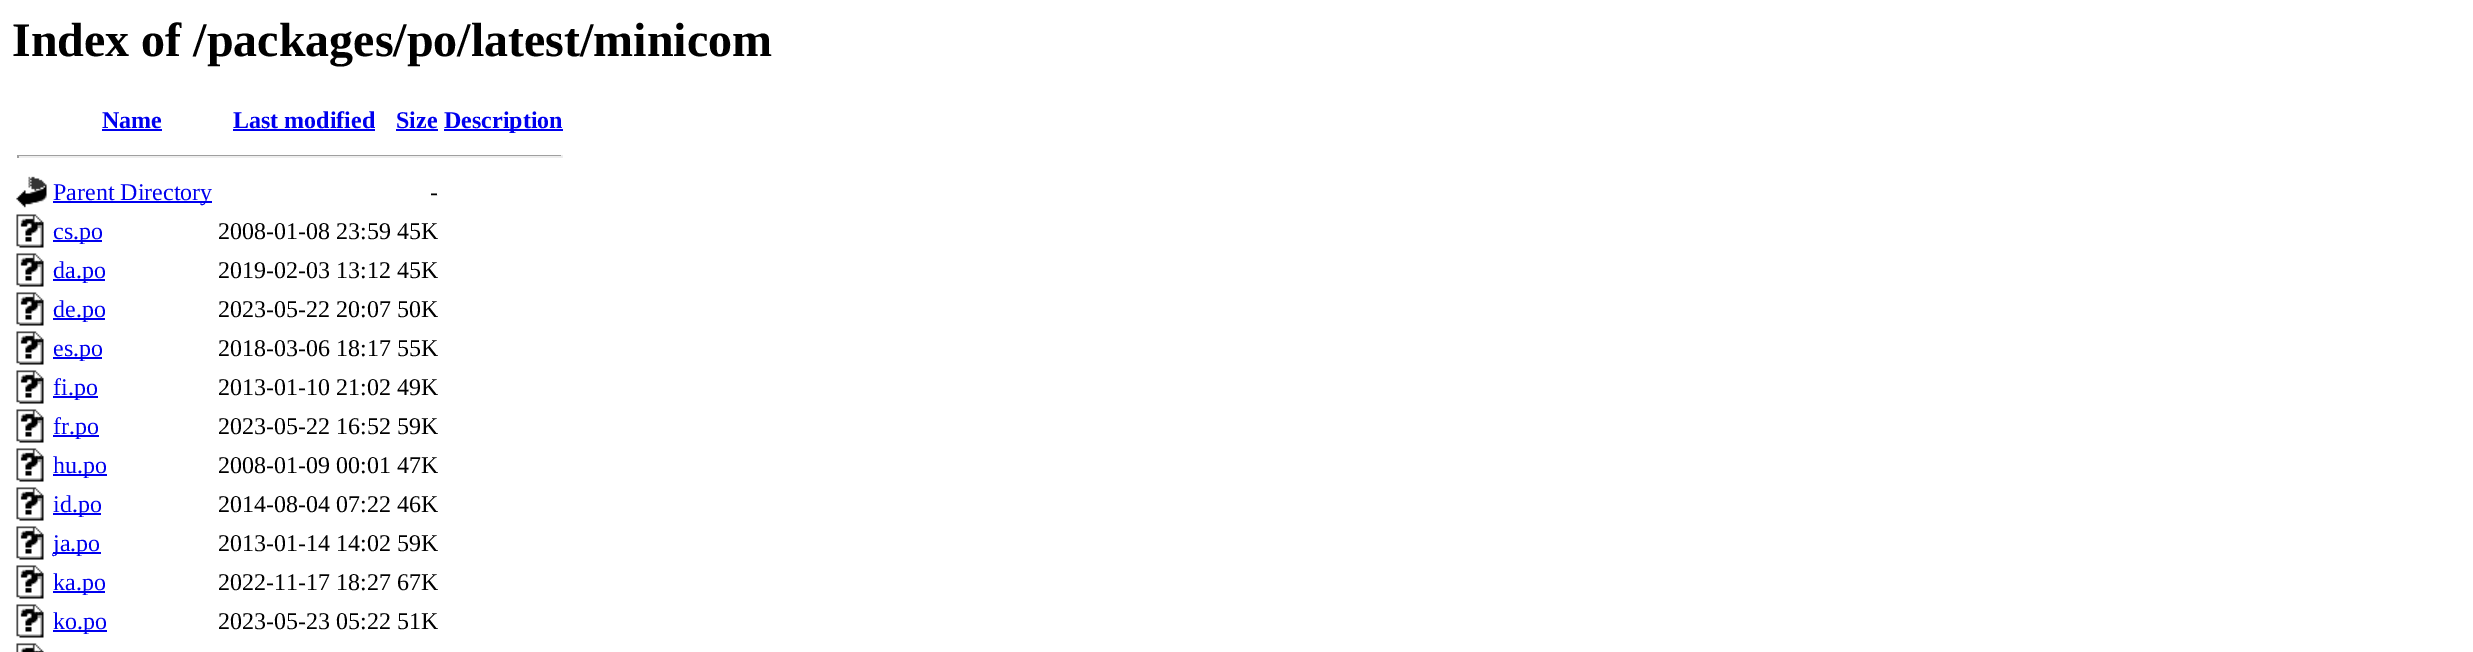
%!PS
<< /PageSize [2473 652] >> setpagedevice
/co { dup -16 bitshift 255 div exch dup -8 bitshift 255 and 255 div exch 255 and 255 div setrgbcolor } def
/fn { [ exch dup neg 0 0 3 -1 roll 0 0 ] selectfont } def
/tx { co fn moveto show } def
/bx { co rectfill } def
/im { 5 dict begin { /h /w /y /x /name } { exch def } forall
  gsave x y translate w h scale
  w h 8 [w 0 0 h 0 0] name (r) file false 3 colorimage grestore end } def
0 652 translate 1 -1 scale
4 setmiterlimit
0 0 2473 652 16#FFFFFF bx
102 129 60 2 16#0000EE bx
233 129 142 2 16#0000EE bx
396 129 42 2 16#0000EE bx
444 129 119 2 16#0000EE bx
17 155 546 1 16#9F9F9F bx
561 155 2 3 16#EEEEEE bx
17 156 546 2 16#EEEEEE bx
17 155 2 3 16#9F9F9F bx
(media/1.raw) 16 176 31 32 im
53 201 159 2 16#0000EE bx
(media/2.raw) 16 214 28 34 im
53 240 49 2 16#0000EE bx
(media/2.raw) 16 253 28 34 im
53 279 52 2 16#0000EE bx
(media/2.raw) 16 292 28 34 im
53 318 52 2 16#0000EE bx
(media/2.raw) 16 331 28 34 im
53 357 49 2 16#0000EE bx
(media/2.raw) 16 370 28 34 im
53 396 45 2 16#0000EE bx
(media/2.raw) 16 409 28 34 im
53 435 46 2 16#0000EE bx
(media/2.raw) 16 448 28 34 im
53 474 54 2 16#0000EE bx
(media/2.raw) 16 487 28 34 im
53 513 48 2 16#0000EE bx
(media/2.raw) 16 526 28 34 im
53 552 48 2 16#0000EE bx
(media/2.raw) 16 565 28 34 im
53 591 52 2 16#0000EE bx
(media/2.raw) 16 604 28 34 im
53 630 54 2 16#0000EE bx
(media/3.raw) 16 643 28 9 im
(Index of /packages/po/latest/minicom) 12 56 /LiberationSerif-Bold 48 16#000000 tx
(Name) 102 128 /LiberationSerif-Bold 24 16#0000EE tx
(Last modified) 233 128 /LiberationSerif-Bold 24 16#0000EE tx
(Size) 396 128 /LiberationSerif-Bold 24 16#0000EE tx
(Description) 444 128 /LiberationSerif-Bold 24 16#0000EE tx
(Parent Directory) 53 200 /LiberationSerif-Regular 24 16#0000EE tx
(-) 430 200 /LiberationSerif-Regular 24 16#000000 tx
(cs.po) 53 239 /LiberationSerif-Regular 24 16#0000EE tx
(2008-01-08 23:59 45K) 218 239 /LiberationSerif-Regular 24 16#000000 tx
(da.po) 53 278 /LiberationSerif-Regular 24 16#0000EE tx
(2019-02-03 13:12 45K) 218 278 /LiberationSerif-Regular 24 16#000000 tx
(de.po) 53 317 /LiberationSerif-Regular 24 16#0000EE tx
(2023-05-22 20:07 50K) 218 317 /LiberationSerif-Regular 24 16#000000 tx
(es.po) 53 356 /LiberationSerif-Regular 24 16#0000EE tx
(2018-03-06 18:17 55K) 218 356 /LiberationSerif-Regular 24 16#000000 tx
(fi.po) 53 395 /LiberationSerif-Regular 24 16#0000EE tx
(2013-01-10 21:02 49K) 218 395 /LiberationSerif-Regular 24 16#000000 tx
(fr.po) 53 434 /LiberationSerif-Regular 24 16#0000EE tx
(2023-05-22 16:52 59K) 218 434 /LiberationSerif-Regular 24 16#000000 tx
(hu.po) 53 473 /LiberationSerif-Regular 24 16#0000EE tx
(2008-01-09 00:01 47K) 218 473 /LiberationSerif-Regular 24 16#000000 tx
(id.po) 53 512 /LiberationSerif-Regular 24 16#0000EE tx
(2014-08-04 07:22 46K) 218 512 /LiberationSerif-Regular 24 16#000000 tx
(ja.po) 53 551 /LiberationSerif-Regular 24 16#0000EE tx
(2013-01-14 14:02 59K) 218 551 /LiberationSerif-Regular 24 16#000000 tx
(ka.po) 53 590 /LiberationSerif-Regular 24 16#0000EE tx
(2022-11-17 18:27 67K) 218 590 /LiberationSerif-Regular 24 16#000000 tx
(ko.po) 53 629 /LiberationSerif-Regular 24 16#0000EE tx
(2023-05-23 05:22 51K) 218 629 /LiberationSerif-Regular 24 16#000000 tx
showpage
